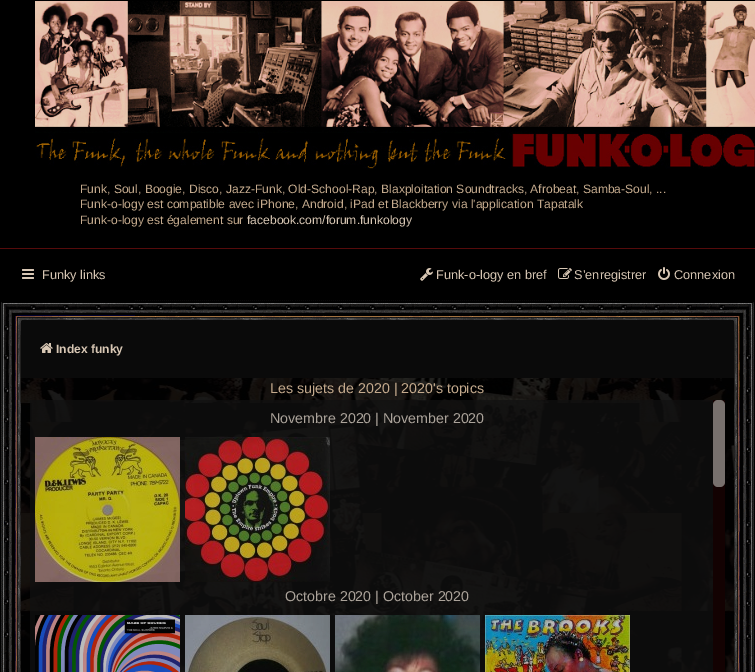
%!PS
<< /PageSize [755 672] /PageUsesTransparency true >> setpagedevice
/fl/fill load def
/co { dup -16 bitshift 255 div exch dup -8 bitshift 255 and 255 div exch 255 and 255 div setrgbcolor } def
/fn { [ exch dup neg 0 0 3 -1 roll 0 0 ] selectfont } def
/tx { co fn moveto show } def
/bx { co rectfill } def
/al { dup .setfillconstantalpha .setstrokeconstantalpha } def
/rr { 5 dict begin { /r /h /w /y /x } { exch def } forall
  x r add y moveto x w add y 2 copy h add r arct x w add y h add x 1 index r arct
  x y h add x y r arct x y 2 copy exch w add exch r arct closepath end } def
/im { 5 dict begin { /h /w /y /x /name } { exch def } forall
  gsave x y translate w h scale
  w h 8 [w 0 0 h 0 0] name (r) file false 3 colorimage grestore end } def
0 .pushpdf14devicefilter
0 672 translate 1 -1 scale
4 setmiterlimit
0 0 755 672 16#FFFFFF bx
(media/1.raw) 0 300 755 372 im
0.85 al
0 300 755 20 16#000000 bx
1 al
0 0 755 248 16#000000 bx
(media/2.raw) 35 1 720 168 im
0 249 755 51 16#000000 bx
0 248 755 1 16#560B0B bx
(media/3.raw) 22 269 12 10 im
(media/4.raw) 420 268 13 13 im
(media/5.raw) 558 268 14 11 im
(media/6.raw) 658 267 12 13 im
0.9 al
0 300 755 20 16#000000 bx
1 al
(media/7.raw) 1 300 753 20 im
21 320 713 58 16#0A0A0A bx
0.85 al
21 378 713 294 16#000000 bx
1 al
(media/8.raw) 0 320 22 80 im
(media/9.raw) 40 343 13 10 im
(media/10.raw) 733 320 22 80 im
(media/11.raw) 0 400 755 272 im
0.72 al
30 400 683 272 16#101010 bx
1 al
(media/12.raw) 35 437 145 145 im
(media/13.raw) 185 437 145 145 im
(media/14.raw) 35 615 145 57 im
(media/15.raw) 185 615 145 57 im
(media/16.raw) 335 615 145 57 im
(media/17.raw) 485 615 145 57 im
713 400 12 272 16#130202 bx
16#77706D co
713 400 12 87 5 rr fl
(Funk, Soul, Boogie, Disco, Jazz-Funk, Old-School-Rap, Blaxploitation Soundtracks, Afrobeat, Samba-Soul, ...) 80 193 /LiberationSans-Regular 12.1 16#C4AA8D tx
(Funk-o-logy est compatible avec iPhone, Android, iPad et Blackberry via l'application Tapatalk) 80 208 /LiberationSans-Regular 12.1 16#C4AA8D tx
(Funk-o-logy est également sur) 80 224 /LiberationSans-Regular 12.1 16#C4AA8D tx
(facebook.com/forum.funkology) 247 224 /LiberationSans-Regular 12.1 16#D8C7B4 tx
(Funky links) 42 279 /LiberationSans-Regular 12.75 16#D8C7B4 tx
(Funk-o-logy en bref) 436 279 /LiberationSans-Regular 12.75 16#D8C7B4 tx
(S’enregistrer) 574 279 /LiberationSans-Regular 12.75 16#D8C7B4 tx
(Connexion) 674 279 /LiberationSans-Regular 12.75 16#D8C7B4 tx
(Index funky) 56 353 /LiberationSans-Bold 12.1 16#D8C7B4 tx
(Les sujets de 2020 | 2020's topics) 270 393 /LiberationSans-Regular 14.25 16#C4AA8D tx
(Novembre 2020 | November 2020) 270 423 /LiberationSans-Regular 14.25 16#ABA39A tx
(Octobre 2020 | October 2020) 285 601 /LiberationSans-Regular 14.25 16#ABA39A tx
.poppdf14devicefilter showpage
